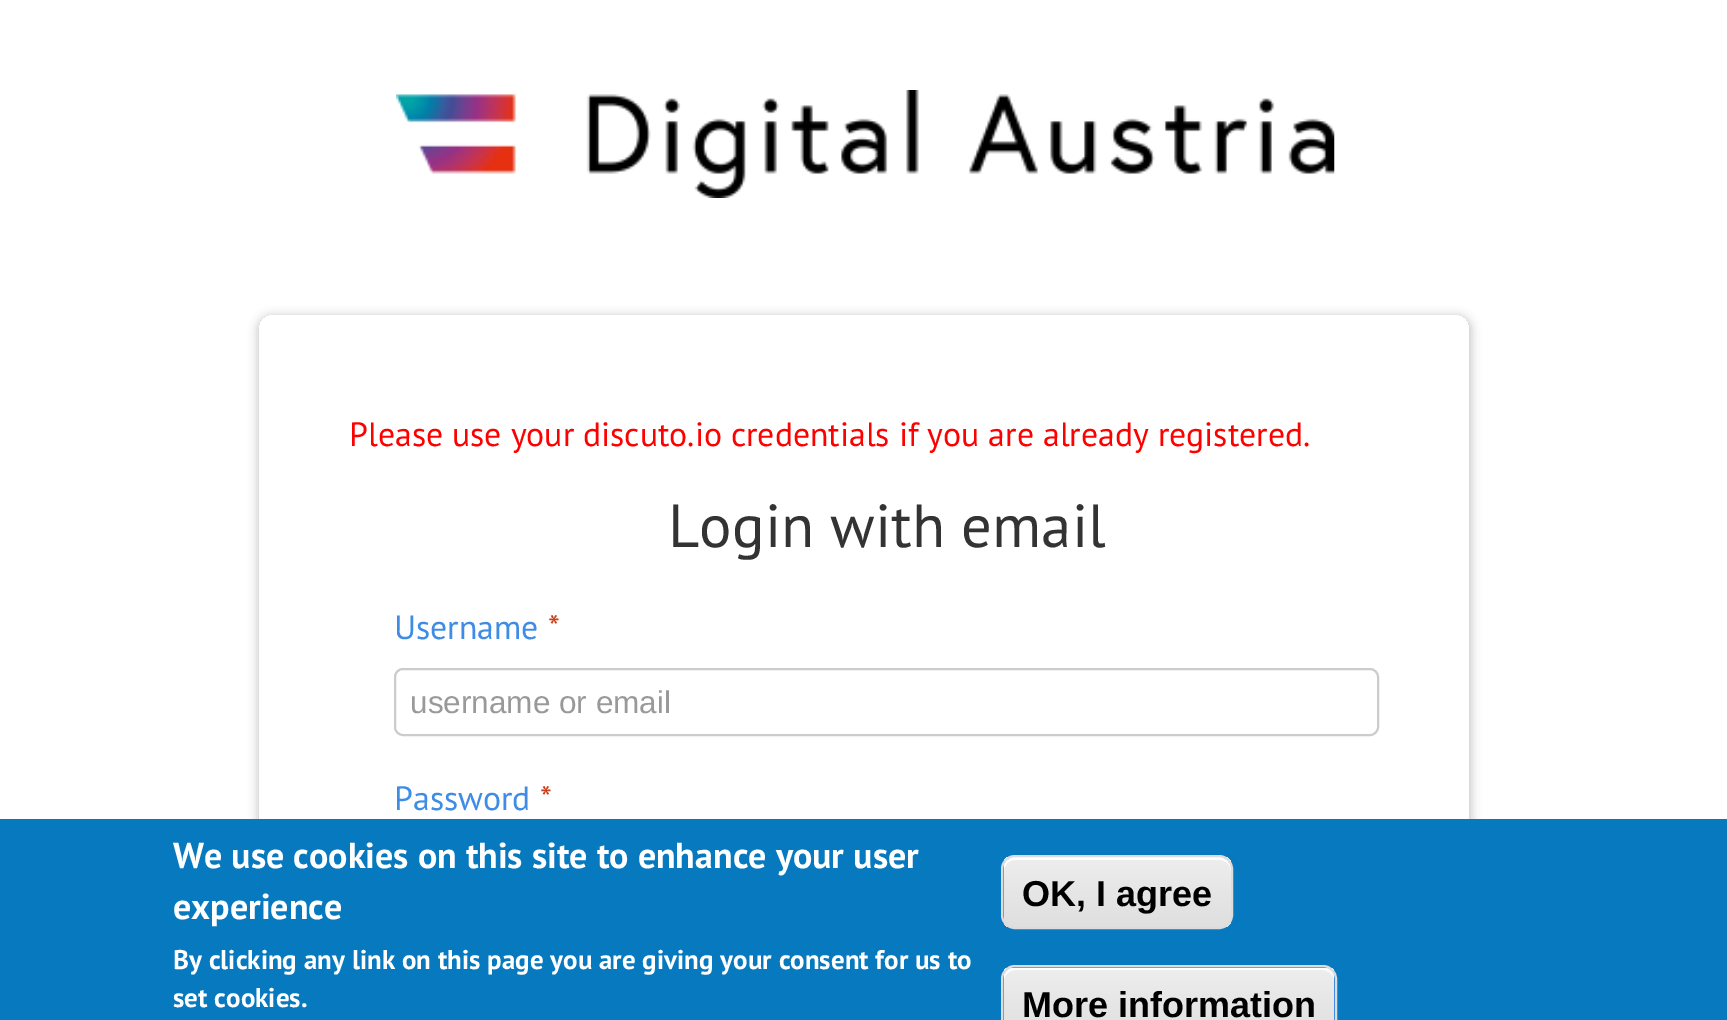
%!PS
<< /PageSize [1727 1020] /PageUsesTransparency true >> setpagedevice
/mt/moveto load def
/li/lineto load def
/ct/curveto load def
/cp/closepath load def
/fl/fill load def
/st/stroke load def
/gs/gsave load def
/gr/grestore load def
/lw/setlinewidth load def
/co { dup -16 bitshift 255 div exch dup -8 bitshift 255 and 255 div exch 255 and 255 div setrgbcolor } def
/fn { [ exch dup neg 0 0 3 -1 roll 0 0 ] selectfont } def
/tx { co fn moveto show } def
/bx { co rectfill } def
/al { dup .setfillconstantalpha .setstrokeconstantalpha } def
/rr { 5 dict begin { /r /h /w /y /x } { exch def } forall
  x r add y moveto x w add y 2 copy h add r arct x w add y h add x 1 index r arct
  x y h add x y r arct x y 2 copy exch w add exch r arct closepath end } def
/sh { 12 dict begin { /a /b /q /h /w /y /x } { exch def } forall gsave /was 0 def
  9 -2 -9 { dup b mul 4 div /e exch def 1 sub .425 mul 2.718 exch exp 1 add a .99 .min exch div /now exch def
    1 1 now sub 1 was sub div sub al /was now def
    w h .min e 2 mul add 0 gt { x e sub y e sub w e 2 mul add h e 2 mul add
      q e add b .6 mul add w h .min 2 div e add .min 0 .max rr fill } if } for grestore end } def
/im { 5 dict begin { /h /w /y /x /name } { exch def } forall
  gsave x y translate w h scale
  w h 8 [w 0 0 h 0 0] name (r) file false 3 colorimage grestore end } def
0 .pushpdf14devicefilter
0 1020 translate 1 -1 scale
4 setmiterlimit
0 0 1727 1020 16#FFFFFF bx
(media/1.raw) 396 90 939 108 im
gs
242 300 mt 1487 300 li 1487 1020 li 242 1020 li cp 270 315 mt 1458 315 li 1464 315 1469 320 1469 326 ct 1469 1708 li 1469 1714 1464 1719 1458 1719 ct 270 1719 li 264 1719 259 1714 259 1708 ct 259 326 li 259 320 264 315 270 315 ct cp eoclip newpath
16#CCCCCC co
257 315 1215 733 14 4.5 1 sh
gr
16#CCCCCC co
2 lw
395 669 983 66 8 rr st
0 819 1727 201 16#0779BF bx
16#3F8CE4 co
1001 855 232 74 14 rr fl
gs
1001 855 232 74 14 rr clip newpath
gs 1004 857 mt 1231 857 li 1231 927 li 1004 927 li cp clip newpath
<< /ShadingType 2 /ColorSpace /DeviceRGB /Coords [1117 857 1117 927] /Extend [true true] /Function << /FunctionType 3 /Domain [0 1] /Functions [<< /FunctionType 2 /Domain [0 1] /C0 [.929 .929 .929] /C1 [.929 .929 .929] /N 1 >> << /FunctionType 2 /Domain [0 1] /C0 [.929 .929 .929] /C1 [.875 .875 .875] /N 1 >>] /Bounds [.05] /Encode [0 1 0 1] >> >> shfill gr
gr
16#FFFFFF co
1015 860 mt 1220 860 li 1226 860 1231 865 1231 871 ct 1231 868 li 1231 862 1226 857 1220 857 ct 1015 857 li 1009 857 1004 862 1004 868 ct 1004 871 li 1004 865 1009 860 1015 860 ct cp fl
16#DCDCDC co
1002 856 230 72 13 rr st
16#3F8CE4 co
1001 965 336 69 14 rr fl
gs
1001 965 336 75 14 rr clip newpath
gs 1004 968 mt 1334 968 li 1334 1020 li 1004 1020 li cp clip newpath
<< /ShadingType 2 /ColorSpace /DeviceRGB /Coords [1169 968 1169 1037] /Extend [true true] /Function << /FunctionType 3 /Domain [0 1] /Functions [<< /FunctionType 2 /Domain [0 1] /C0 [.929 .929 .929] /C1 [.929 .929 .929] /N 1 >> << /FunctionType 2 /Domain [0 1] /C0 [.929 .929 .929] /C1 [.875 .875 .875] /N 1 >>] /Bounds [.05] /Encode [0 1 0 1] >> >> shfill gr
gr
16#FFFFFF co
1015 970 mt 1323 970 li 1329 970 1334 975 1334 981 ct 1334 979 li 1334 973 1329 968 1323 968 ct 1015 968 li 1009 968 1004 973 1004 979 ct 1004 981 li 1004 975 1009 970 1015 970 ct cp fl
16#DCDCDC co
1002 966 334 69 13 rr st
(Please use your discuto.io credentials if you are already registered.) 349 446 /PTSans-Regular 33.75 16#FF0000 tx
(Login with email) 668 547 /PTSans-Regular 60.75 16#333333 tx
(Username) 394 639 /PTSans-Regular 33.75 16#3F8CE4 tx
(*) 548 639 /PTSans-Regular 33.75 16#C83F19 tx
(username or email) 410 713 /LiberationSans-Regular 31.5 16#999999 tx
(Password) 394 810 /PTSans-Regular 33.75 16#3F8CE4 tx
(*) 540 810 /PTSans-Regular 33.75 16#C83F19 tx
(We use cookies on this site to enhance your user) 173 868 /PTSans-Bold 36 16#FFFFFF tx
(experience) 173 919 /PTSans-Bold 36 16#FFFFFF tx
(By clicking any link on this page you are giving your consent for us to) 173 969 /PTSans-Bold 27 16#FFFFFF tx
(set cookies.) 173 1007 /PTSans-Bold 27 16#FFFFFF tx
(OK, I agree) 1022 906 /LiberationSans-Bold 36 16#000000 tx
(More information) 1022 1017 /LiberationSans-Bold 36 16#000000 tx
.poppdf14devicefilter showpage
